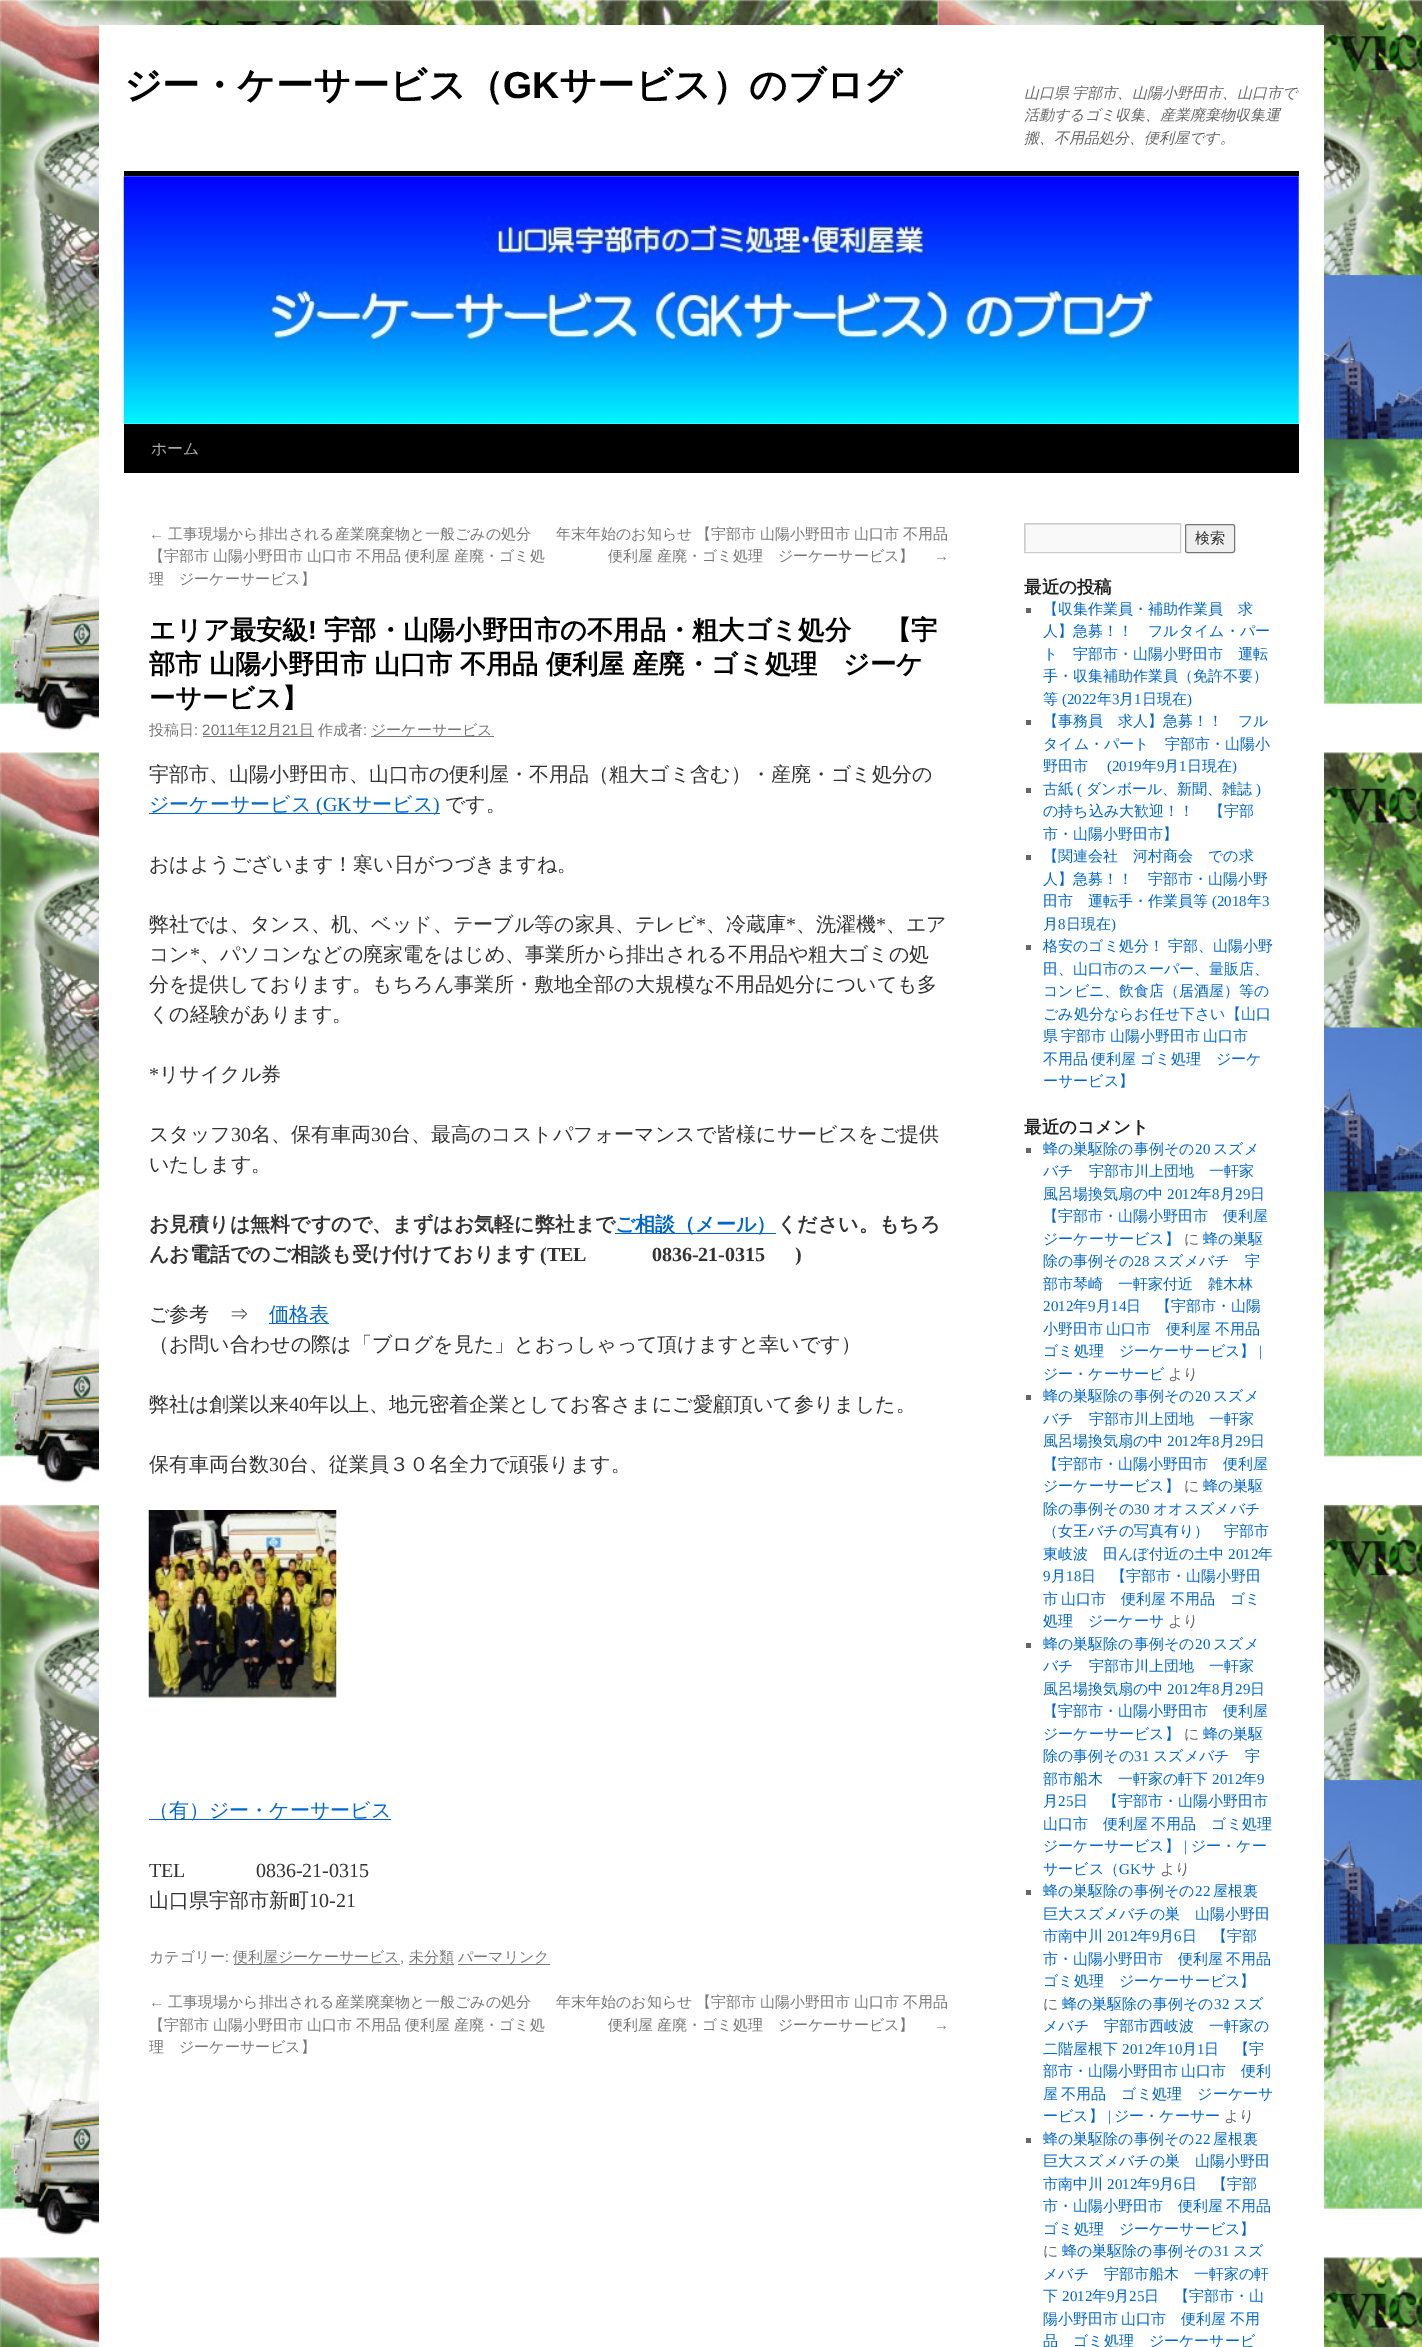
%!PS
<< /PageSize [1422 2347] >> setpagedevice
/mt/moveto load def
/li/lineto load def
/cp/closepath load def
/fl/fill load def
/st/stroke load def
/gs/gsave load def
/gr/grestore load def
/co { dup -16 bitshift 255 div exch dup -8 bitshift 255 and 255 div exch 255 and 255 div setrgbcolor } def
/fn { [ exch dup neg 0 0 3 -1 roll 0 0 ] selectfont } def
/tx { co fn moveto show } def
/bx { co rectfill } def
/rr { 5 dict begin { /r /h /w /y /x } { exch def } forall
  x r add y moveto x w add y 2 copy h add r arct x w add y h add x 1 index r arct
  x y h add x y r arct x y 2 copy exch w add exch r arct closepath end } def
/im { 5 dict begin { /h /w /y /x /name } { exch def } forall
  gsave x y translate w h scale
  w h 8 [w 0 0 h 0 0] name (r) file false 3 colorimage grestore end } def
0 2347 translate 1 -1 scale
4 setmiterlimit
0 0 1422 2347 16#FFFFFF bx
(media/1.raw) 0 0 1422 2347 im
99 25 1225 2322 16#FFFFFF bx
124 171 1175 5 16#000000 bx
124 424 1175 49 16#000000 bx
(media/2.raw) 123 176 1176 248 im
203 736 111 1 16#777777 bx
371 736 123 1 16#777777 bx
149 813 291 1 16#0066CC bx
269 1323 60 1 16#0066CC bx
(media/3.raw) 148 1510 189 188 im
149 1819 242 1 16#0066CC bx
234 1964 166 1 16#777777 bx
409 1964 45 1 16#777777 bx
458 1964 92 1 16#777777 bx
1025 525 155 27 16#F9F9F9 bx
gs
1025 524 155 27 rectclip
16#E0E0E0 co
901 400 mt 1304 400 li 1304 675 li 901 675 li cp 1026 525 mt 1181 525 li 1181 552 li 1026 552 li cp eofill
gr
16#CCCCCC co
1024.5 523.5 156 29 rectstroke
16#EFEFEF co
1185.5 524.5 49 28 2 rr gs fl gr
16#767676 co
st
1026 608 5 5 16#666666 bx
1026 720 5 5 16#666666 bx
1026 788 5 5 16#666666 bx
1026 855 5 5 16#666666 bx
1026 945 5 5 16#666666 bx
1026 1148 5 5 16#666666 bx
1026 1395 5 5 16#666666 bx
1026 1643 5 5 16#666666 bx
1026 1890 5 5 16#666666 bx
1026 2138 5 5 16#666666 bx
(ジー・ケーサービス（) 124 98 /WenQuanYiZenHei-Bold 37.5 16#000000 tx
(GK) 503 98 /LiberationSans-Bold 37.5 16#000000 tx
(サービス）のブログ) 559 98 /WenQuanYiZenHei-Bold 37.5 16#000000 tx
/WenQuanYiZenHei-MediumItalic 15 fn
16#666666 co
1024 98 mt -1 0 32 (山口県 宇部市、山陽小野田市、山口市で) widthshow
(活動するゴミ収集、産業廃棄物収集運) 1024 120 /WenQuanYiZenHei-MediumItalic 15 16#666666 tx
(搬、不用品処分、便利屋です。) 1024 143 /WenQuanYiZenHei-MediumItalic 15 16#666666 tx
(ホーム) 151 454 /WenQuanYiZenHei-Medium 16 16#AAAAAA tx
(←) 149 539 /LiberationSans-Regular 15 16#777777 tx
(工事現場から排出される産業廃棄物と一般ごみの処分) 168 539 /WenQuanYiZenHei-Medium 15 16#777777 tx
149 561 mt -.5 0 32 (【宇部市 山陽小野田市 山口市 不用品 便利屋 産廃・ゴミ処) widthshow
(理　ジーケーサービス】) 149 584 /WenQuanYiZenHei-Medium 15 16#777777 tx
556 539 mt -.5 0 32 (年末年始のお知らせ 【宇部市 山陽小野田市 山口市 不用品) widthshow
608 561 mt -.5 0 32 (便利屋 産廃・ゴミ処理　ジーケーサービス】) widthshow
(→) 934 561 /LiberationSans-Regular 15 16#777777 tx
(エリア最安級) 149 639 /WenQuanYiZenHei-Bold 26.25 16#000000 tx
(!) 308 639 /LiberationSans-Bold 26.25 16#000000 tx
(宇部・山陽小野田市の不用品・粗大ゴミ処分　 【宇) 324 639 /WenQuanYiZenHei-Bold 26.25 16#000000 tx
149 673 mt -.5 0 32 (部市 山陽小野田市 山口市 不用品 便利屋 産廃・ゴミ処理　ジーケ) widthshow
(ーサービス】) 149 707 /WenQuanYiZenHei-Bold 26.25 16#000000 tx
(投稿日) 149 735 /WenQuanYiZenHei-Medium 15 16#777777 tx
(: 2011) 194 735 /LiberationSans-Regular 15 16#777777 tx
(年) 235 735 /WenQuanYiZenHei-Medium 15 16#777777 tx
(12) 250 735 /LiberationSans-Regular 15 16#777777 tx
(月) 267 735 /WenQuanYiZenHei-Medium 15 16#777777 tx
(21) 282 735 /LiberationSans-Regular 15 16#777777 tx
(日) 299 735 /WenQuanYiZenHei-Medium 15 16#777777 tx
(作成者) 318 735 /WenQuanYiZenHei-Medium 15 16#777777 tx
(:) 363 735 /LiberationSans-Regular 15 16#777777 tx
(ジーケーサービス) 371 735 /WenQuanYiZenHei-Medium 15 16#777777 tx
(宇部市、山陽小野田市、山口市の便利屋・不用品（粗大ゴミ含む）・産廃・ゴミ処分の) 149 781 /WenQuanYiZenHei-Medium 20 16#333333 tx
(ジーケーサービス) 149 811 /WenQuanYiZenHei-Medium 20 16#0066CC tx
(\(GK) 316 811 /LiberationSerif-Regular 20 16#0066CC tx
(サービス) 352 811 /WenQuanYiZenHei-Medium 20 16#0066CC tx
(\)) 433 811 /LiberationSerif-Regular 20 16#0066CC tx
(です。) 445 811 /WenQuanYiZenHei-Medium 20 16#333333 tx
(おはようございます！寒い日がつづきますね。) 149 871 /WenQuanYiZenHei-Medium 20 16#333333 tx
(弊社では、タンス、机、ベッド、テーブル等の家具、テレビ) 149 931 /WenQuanYiZenHei-Medium 20 16#333333 tx
(*) 696 931 /LiberationSerif-Regular 20 16#333333 tx
(、冷蔵庫) 706 931 /WenQuanYiZenHei-Medium 20 16#333333 tx
(*) 786 931 /LiberationSerif-Regular 20 16#333333 tx
(、洗濯機) 796 931 /WenQuanYiZenHei-Medium 20 16#333333 tx
(*) 876 931 /LiberationSerif-Regular 20 16#333333 tx
(、エア) 886 931 /WenQuanYiZenHei-Medium 20 16#333333 tx
(コン) 149 961 /WenQuanYiZenHei-Medium 20 16#333333 tx
(*) 190 961 /LiberationSerif-Regular 20 16#333333 tx
(、パソコンなどの廃家電をはじめ、事業所から排出される不用品や粗大ゴミの処) 200 961 /WenQuanYiZenHei-Medium 20 16#333333 tx
(分を提供しております。もちろん事業所・敷地全部の大規模な不用品処分についても多) 149 991 /WenQuanYiZenHei-Medium 20 16#333333 tx
(くの経験があります。) 149 1021 /WenQuanYiZenHei-Medium 20 16#333333 tx
(*) 149 1081 /LiberationSerif-Regular 20 16#333333 tx
(リサイクル券) 159 1081 /WenQuanYiZenHei-Medium 20 16#333333 tx
(スタッフ) 149 1141 /WenQuanYiZenHei-Medium 20 16#333333 tx
(30) 231 1141 /LiberationSerif-Regular 20 16#333333 tx
(名、保有車両) 251 1141 /WenQuanYiZenHei-Medium 20 16#333333 tx
(30) 371 1141 /LiberationSerif-Regular 20 16#333333 tx
(台、最高のコストパフォーマンスで皆様にサービスをご提供) 391 1141 /WenQuanYiZenHei-Medium 20 16#333333 tx
(いたします。) 149 1171 /WenQuanYiZenHei-Medium 20 16#333333 tx
(お見積りは無料ですので、まずはお気軽に弊社まで) 149 1231 /WenQuanYiZenHei-Bold 20 16#333333 tx
615 1233 161 1 16#0066CC bx
(ご相談（メール）) 615 1231 /WenQuanYiZenHei-Bold 20 16#0066CC tx
(ください。もちろ) 777 1231 /WenQuanYiZenHei-Bold 20 16#333333 tx
(んお電話でのご相談も受け付けております) 149 1261 /WenQuanYiZenHei-Bold 20 16#333333 tx
(\(TEL             0836-21-0315      \)) 540 1261 /LiberationSerif-Bold 20 16#333333 tx
(ご参考　⇒) 149 1321 /WenQuanYiZenHei-Medium 20 16#333333 tx
(価格表) 269 1321 /WenQuanYiZenHei-Medium 20 16#0066CC tx
(（お問い合わせの際は「ブログを見た」とおっしゃって頂けますと幸いです）) 149 1351 /WenQuanYiZenHei-Medium 20 16#333333 tx
(弊社は創業以来) 149 1411 /WenQuanYiZenHei-Medium 20 16#333333 tx
(40) 289 1411 /LiberationSerif-Regular 20 16#333333 tx
(年以上、地元密着企業としてお客さまにご愛顧頂いて参りました。) 309 1411 /WenQuanYiZenHei-Medium 20 16#333333 tx
(保有車両台数) 149 1471 /WenQuanYiZenHei-Medium 20 16#333333 tx
(30) 269 1471 /LiberationSerif-Regular 20 16#333333 tx
(台、従業員３０名全力で頑張ります。) 289 1471 /WenQuanYiZenHei-Medium 20 16#333333 tx
(（有）ジー・ケーサービス) 149 1817 /WenQuanYiZenHei-Medium 20 16#0066CC tx
(TEL              0836-21-0315) 149 1877 /LiberationSerif-Regular 20 16#333333 tx
(山口県宇部市新町) 149 1907 /WenQuanYiZenHei-Medium 20 16#333333 tx
(10-21) 309 1907 /LiberationSerif-Regular 20 16#333333 tx
(カテゴリー) 149 1962 /WenQuanYiZenHei-Medium 15 16#777777 tx
(:) 225 1962 /LiberationSans-Regular 15 16#777777 tx
(便利屋ジーケーサービス) 233 1962 /WenQuanYiZenHei-Medium 15 16#777777 tx
(,) 400 1962 /LiberationSans-Regular 15 16#777777 tx
(未分類) 409 1962 /WenQuanYiZenHei-Medium 15 16#777777 tx
(パーマリンク) 458 1962 /WenQuanYiZenHei-Medium 15 16#777777 tx
(←) 149 2007 /LiberationSans-Regular 15 16#777777 tx
(工事現場から排出される産業廃棄物と一般ごみの処分) 168 2007 /WenQuanYiZenHei-Medium 15 16#777777 tx
149 2030 mt -.5 0 32 (【宇部市 山陽小野田市 山口市 不用品 便利屋 産廃・ゴミ処) widthshow
(理　ジーケーサービス】) 149 2052 /WenQuanYiZenHei-Medium 15 16#777777 tx
556 2007 mt -.5 0 32 (年末年始のお知らせ 【宇部市 山陽小野田市 山口市 不用品) widthshow
608 2030 mt -.5 0 32 (便利屋 産廃・ゴミ処理　ジーケーサービス】) widthshow
(→) 934 2030 /LiberationSans-Regular 15 16#777777 tx
(検索) 1195 543 /WenQuanYiZenHei-Medium 15 16#333333 tx
(最近の投稿) 1024 593 /WenQuanYiZenHei-Bold 17.5 16#222222 tx
(【収集作業員・補助作業員　求) 1043 614 /WenQuanYiZenHei-Medium 15 16#0066CC tx
(人】急募！！　フルタイム・パー) 1043 636 /WenQuanYiZenHei-Medium 15 16#0066CC tx
(ト　宇部市・山陽小野田市　運転) 1043 659 /WenQuanYiZenHei-Medium 15 16#0066CC tx
(手・収集補助作業員（免許不要）) 1043 681 /WenQuanYiZenHei-Medium 15 16#0066CC tx
(等) 1043 704 /WenQuanYiZenHei-Medium 15 16#0066CC tx
(\(2022) 1062 704 /LiberationSerif-Regular 15 16#0066CC tx
(年) 1097 704 /WenQuanYiZenHei-Medium 15 16#0066CC tx
(3) 1112 704 /LiberationSerif-Regular 15 16#0066CC tx
(月) 1119 704 /WenQuanYiZenHei-Medium 15 16#0066CC tx
(1) 1134 704 /LiberationSerif-Regular 15 16#0066CC tx
(日現在) 1142 704 /WenQuanYiZenHei-Medium 15 16#0066CC tx
(\)) 1187 704 /LiberationSerif-Regular 15 16#0066CC tx
(【事務員　求人】急募！！　フル) 1043 726 /WenQuanYiZenHei-Medium 15 16#0066CC tx
(タイム・パート　宇部市・山陽小) 1043 749 /WenQuanYiZenHei-Medium 15 16#0066CC tx
(野田市) 1043 771 /WenQuanYiZenHei-Medium 15 16#0066CC tx
(\(2019) 1107 771 /LiberationSerif-Regular 15 16#0066CC tx
(年) 1142 771 /WenQuanYiZenHei-Medium 15 16#0066CC tx
(9) 1157 771 /LiberationSerif-Regular 15 16#0066CC tx
(月) 1164 771 /WenQuanYiZenHei-Medium 15 16#0066CC tx
(1) 1179 771 /LiberationSerif-Regular 15 16#0066CC tx
(日現在) 1187 771 /WenQuanYiZenHei-Medium 15 16#0066CC tx
(\)) 1232 771 /LiberationSerif-Regular 15 16#0066CC tx
(古紙) 1043 794 /WenQuanYiZenHei-Medium 15 16#0066CC tx
(\() 1077 794 /LiberationSerif-Regular 15 16#0066CC tx
(ダンボール、新聞、雑誌) 1086 794 /WenQuanYiZenHei-Medium 15 16#0066CC tx
(\)) 1256 794 /LiberationSerif-Regular 15 16#0066CC tx
(の持ち込み大歓迎！！　【宇部) 1043 816 /WenQuanYiZenHei-Medium 15 16#0066CC tx
(市・山陽小野田市】) 1043 839 /WenQuanYiZenHei-Medium 15 16#0066CC tx
(【関連会社　河村商会　での求) 1043 861 /WenQuanYiZenHei-Medium 15 16#0066CC tx
(人】急募！！　宇部市・山陽小野) 1043 884 /WenQuanYiZenHei-Medium 15 16#0066CC tx
(田市　運転手・作業員等) 1043 906 /WenQuanYiZenHei-Medium 15 16#0066CC tx
(\(2018) 1212 906 /LiberationSerif-Regular 15 16#0066CC tx
(年) 1247 906 /WenQuanYiZenHei-Medium 15 16#0066CC tx
(3) 1262 906 /LiberationSerif-Regular 15 16#0066CC tx
(月) 1043 929 /WenQuanYiZenHei-Medium 15 16#0066CC tx
(8) 1058 929 /LiberationSerif-Regular 15 16#0066CC tx
(日現在) 1066 929 /WenQuanYiZenHei-Medium 15 16#0066CC tx
(\)) 1111 929 /LiberationSerif-Regular 15 16#0066CC tx
/WenQuanYiZenHei-Medium 15 fn
1043 951 mt -1 0 32 (格安のゴミ処分！ 宇部、山陽小野) widthshow
(田、山口市のスーパー、量販店、) 1043 974 /WenQuanYiZenHei-Medium 15 16#0066CC tx
(コンビニ、飲食店（居酒屋）等の) 1043 996 /WenQuanYiZenHei-Medium 15 16#0066CC tx
(ごみ処分ならお任せ下さい【山口) 1043 1019 /WenQuanYiZenHei-Medium 15 16#0066CC tx
1043 1041 mt -1 0 32 (県 宇部市 山陽小野田市 山口市) widthshow
1043 1064 mt -1 0 32 (不用品 便利屋 ゴミ処理　ジーケ) widthshow
(ーサービス】) 1043 1086 /WenQuanYiZenHei-Medium 15 16#0066CC tx
(最近のコメント) 1024 1133 /WenQuanYiZenHei-Bold 17.5 16#222222 tx
(蜂の巣駆除の事例その) 1043 1154 /WenQuanYiZenHei-Medium 15 16#0066CC tx
(20) 1195 1154 /LiberationSerif-Regular 15 16#0066CC tx
(スズメ) 1213 1154 /WenQuanYiZenHei-Medium 15 16#0066CC tx
(バチ　宇部市川上団地　一軒家) 1043 1176 /WenQuanYiZenHei-Medium 15 16#0066CC tx
(風呂場換気扇の中) 1043 1199 /WenQuanYiZenHei-Medium 15 16#0066CC tx
(2012) 1167 1199 /LiberationSerif-Regular 15 16#0066CC tx
(年) 1197 1199 /WenQuanYiZenHei-Medium 15 16#0066CC tx
(8) 1212 1199 /LiberationSerif-Regular 15 16#0066CC tx
(月) 1220 1199 /WenQuanYiZenHei-Medium 15 16#0066CC tx
(29) 1235 1199 /LiberationSerif-Regular 15 16#0066CC tx
(日) 1250 1199 /WenQuanYiZenHei-Medium 15 16#0066CC tx
(【宇部市・山陽小野田市　便利屋) 1043 1221 /WenQuanYiZenHei-Medium 15 16#0066CC tx
(ジーケーサービス】) 1043 1244 /WenQuanYiZenHei-Medium 15 16#0066CC tx
(に) 1184 1244 /WenQuanYiZenHei-Medium 15 16#666666 tx
(蜂の巣駆) 1203 1244 /WenQuanYiZenHei-Medium 15 16#0066CC tx
(除の事例その) 1043 1266 /WenQuanYiZenHei-Medium 15 16#0066CC tx
(28) 1134 1266 /LiberationSerif-Regular 15 16#0066CC tx
(スズメバチ　宇) 1153 1266 /WenQuanYiZenHei-Medium 15 16#0066CC tx
(部市琴崎　一軒家付近　雑木林) 1043 1289 /WenQuanYiZenHei-Medium 15 16#0066CC tx
(2012) 1043 1311 /LiberationSerif-Regular 15 16#0066CC tx
(年) 1073 1311 /WenQuanYiZenHei-Medium 15 16#0066CC tx
(9) 1088 1311 /LiberationSerif-Regular 15 16#0066CC tx
(月) 1096 1311 /WenQuanYiZenHei-Medium 15 16#0066CC tx
(14) 1111 1311 /LiberationSerif-Regular 15 16#0066CC tx
(日　【宇部市・山陽) 1126 1311 /WenQuanYiZenHei-Medium 15 16#0066CC tx
1043 1334 mt -1 0 32 (小野田市 山口市　便利屋 不用品) widthshow
(ゴミ処理　ジーケーサービス】) 1043 1356 /WenQuanYiZenHei-Medium 15 16#0066CC tx
(|) 1259 1356 /LiberationSerif-Regular 15 16#0066CC tx
(ジー・ケーサービ) 1043 1379 /WenQuanYiZenHei-Medium 15 16#0066CC tx
(より) 1168 1379 /WenQuanYiZenHei-Medium 15 16#666666 tx
(蜂の巣駆除の事例その) 1043 1401 /WenQuanYiZenHei-Medium 15 16#0066CC tx
(20) 1195 1401 /LiberationSerif-Regular 15 16#0066CC tx
(スズメ) 1213 1401 /WenQuanYiZenHei-Medium 15 16#0066CC tx
(バチ　宇部市川上団地　一軒家) 1043 1424 /WenQuanYiZenHei-Medium 15 16#0066CC tx
(風呂場換気扇の中) 1043 1446 /WenQuanYiZenHei-Medium 15 16#0066CC tx
(2012) 1167 1446 /LiberationSerif-Regular 15 16#0066CC tx
(年) 1197 1446 /WenQuanYiZenHei-Medium 15 16#0066CC tx
(8) 1212 1446 /LiberationSerif-Regular 15 16#0066CC tx
(月) 1220 1446 /WenQuanYiZenHei-Medium 15 16#0066CC tx
(29) 1235 1446 /LiberationSerif-Regular 15 16#0066CC tx
(日) 1250 1446 /WenQuanYiZenHei-Medium 15 16#0066CC tx
(【宇部市・山陽小野田市　便利屋) 1043 1469 /WenQuanYiZenHei-Medium 15 16#0066CC tx
(ジーケーサービス】) 1043 1491 /WenQuanYiZenHei-Medium 15 16#0066CC tx
(に) 1184 1491 /WenQuanYiZenHei-Medium 15 16#666666 tx
(蜂の巣駆) 1203 1491 /WenQuanYiZenHei-Medium 15 16#0066CC tx
(除の事例その) 1043 1514 /WenQuanYiZenHei-Medium 15 16#0066CC tx
(30) 1134 1514 /LiberationSerif-Regular 15 16#0066CC tx
(オオスズメバチ) 1153 1514 /WenQuanYiZenHei-Medium 15 16#0066CC tx
(（女王バチの写真有り）　宇部市) 1043 1536 /WenQuanYiZenHei-Medium 15 16#0066CC tx
(東岐波　田んぼ付近の土中) 1043 1559 /WenQuanYiZenHei-Medium 15 16#0066CC tx
(2012) 1228 1559 /LiberationSerif-Regular 15 16#0066CC tx
(年) 1258 1559 /WenQuanYiZenHei-Medium 15 16#0066CC tx
(9) 1043 1581 /LiberationSerif-Regular 15 16#0066CC tx
(月) 1051 1581 /WenQuanYiZenHei-Medium 15 16#0066CC tx
(18) 1066 1581 /LiberationSerif-Regular 15 16#0066CC tx
(日　【宇部市・山陽小野田) 1081 1581 /WenQuanYiZenHei-Medium 15 16#0066CC tx
1043 1604 mt -1 0 32 (市 山口市　便利屋 不用品　ゴミ) widthshow
(処理　ジーケーサ) 1043 1626 /WenQuanYiZenHei-Medium 15 16#0066CC tx
(より) 1168 1626 /WenQuanYiZenHei-Medium 15 16#666666 tx
(蜂の巣駆除の事例その) 1043 1649 /WenQuanYiZenHei-Medium 15 16#0066CC tx
(20) 1195 1649 /LiberationSerif-Regular 15 16#0066CC tx
(スズメ) 1213 1649 /WenQuanYiZenHei-Medium 15 16#0066CC tx
(バチ　宇部市川上団地　一軒家) 1043 1671 /WenQuanYiZenHei-Medium 15 16#0066CC tx
(風呂場換気扇の中) 1043 1694 /WenQuanYiZenHei-Medium 15 16#0066CC tx
(2012) 1167 1694 /LiberationSerif-Regular 15 16#0066CC tx
(年) 1197 1694 /WenQuanYiZenHei-Medium 15 16#0066CC tx
(8) 1212 1694 /LiberationSerif-Regular 15 16#0066CC tx
(月) 1220 1694 /WenQuanYiZenHei-Medium 15 16#0066CC tx
(29) 1235 1694 /LiberationSerif-Regular 15 16#0066CC tx
(日) 1250 1694 /WenQuanYiZenHei-Medium 15 16#0066CC tx
(【宇部市・山陽小野田市　便利屋) 1043 1716 /WenQuanYiZenHei-Medium 15 16#0066CC tx
(ジーケーサービス】) 1043 1739 /WenQuanYiZenHei-Medium 15 16#0066CC tx
(に) 1184 1739 /WenQuanYiZenHei-Medium 15 16#666666 tx
(蜂の巣駆) 1203 1739 /WenQuanYiZenHei-Medium 15 16#0066CC tx
(除の事例その) 1043 1761 /WenQuanYiZenHei-Medium 15 16#0066CC tx
(31) 1134 1761 /LiberationSerif-Regular 15 16#0066CC tx
(スズメバチ　宇) 1153 1761 /WenQuanYiZenHei-Medium 15 16#0066CC tx
(部市船木　一軒家の軒下) 1043 1784 /WenQuanYiZenHei-Medium 15 16#0066CC tx
(2012) 1212 1784 /LiberationSerif-Regular 15 16#0066CC tx
(年) 1242 1784 /WenQuanYiZenHei-Medium 15 16#0066CC tx
(9) 1257 1784 /LiberationSerif-Regular 15 16#0066CC tx
(月) 1043 1806 /WenQuanYiZenHei-Medium 15 16#0066CC tx
(25) 1058 1806 /LiberationSerif-Regular 15 16#0066CC tx
(日　【宇部市・山陽小野田市) 1073 1806 /WenQuanYiZenHei-Medium 15 16#0066CC tx
1043 1829 mt -1 0 32 (山口市　便利屋 不用品　ゴミ処理) widthshow
(ジーケーサービス】) 1043 1851 /WenQuanYiZenHei-Medium 15 16#0066CC tx
(|) 1184 1851 /LiberationSerif-Regular 15 16#0066CC tx
(ジー・ケー) 1191 1851 /WenQuanYiZenHei-Medium 15 16#0066CC tx
(サービス（) 1043 1874 /WenQuanYiZenHei-Medium 15 16#0066CC tx
(GK) 1119 1874 /LiberationSerif-Regular 15 16#0066CC tx
(サ) 1141 1874 /WenQuanYiZenHei-Medium 15 16#0066CC tx
(より) 1160 1874 /WenQuanYiZenHei-Medium 15 16#666666 tx
(蜂の巣駆除の事例その) 1043 1896 /WenQuanYiZenHei-Medium 15 16#0066CC tx
(22) 1195 1896 /LiberationSerif-Regular 15 16#0066CC tx
(屋根裏) 1213 1896 /WenQuanYiZenHei-Medium 15 16#0066CC tx
(巨大スズメバチの巣　山陽小野田) 1043 1919 /WenQuanYiZenHei-Medium 15 16#0066CC tx
(市南中川) 1043 1941 /WenQuanYiZenHei-Medium 15 16#0066CC tx
(2012) 1107 1941 /LiberationSerif-Regular 15 16#0066CC tx
(年) 1137 1941 /WenQuanYiZenHei-Medium 15 16#0066CC tx
(9) 1152 1941 /LiberationSerif-Regular 15 16#0066CC tx
(月) 1159 1941 /WenQuanYiZenHei-Medium 15 16#0066CC tx
(6) 1174 1941 /LiberationSerif-Regular 15 16#0066CC tx
(日　【宇部) 1182 1941 /WenQuanYiZenHei-Medium 15 16#0066CC tx
1043 1964 mt -1 0 32 (市・山陽小野田市　便利屋 不用品) widthshow
(ゴミ処理　ジーケーサービス】) 1043 1986 /WenQuanYiZenHei-Medium 15 16#0066CC tx
(に) 1043 2009 /WenQuanYiZenHei-Medium 15 16#666666 tx
(蜂の巣駆除の事例その) 1062 2009 /WenQuanYiZenHei-Medium 15 16#0066CC tx
(32) 1214 2009 /LiberationSerif-Regular 15 16#0066CC tx
(スズ) 1233 2009 /WenQuanYiZenHei-Medium 15 16#0066CC tx
(メバチ　宇部市西岐波　一軒家の) 1043 2031 /WenQuanYiZenHei-Medium 15 16#0066CC tx
(二階屋根下) 1043 2054 /WenQuanYiZenHei-Medium 15 16#0066CC tx
(2012) 1122 2054 /LiberationSerif-Regular 15 16#0066CC tx
(年) 1152 2054 /WenQuanYiZenHei-Medium 15 16#0066CC tx
(10) 1167 2054 /LiberationSerif-Regular 15 16#0066CC tx
(月) 1182 2054 /WenQuanYiZenHei-Medium 15 16#0066CC tx
(1) 1197 2054 /LiberationSerif-Regular 15 16#0066CC tx
(日　【宇) 1204 2054 /WenQuanYiZenHei-Medium 15 16#0066CC tx
1043 2076 mt -1 0 32 (部市・山陽小野田市 山口市　便利) widthshow
1043 2099 mt -1 0 32 (屋 不用品　ゴミ処理　ジーケーサ) widthshow
(ービス】) 1043 2121 /WenQuanYiZenHei-Medium 15 16#0066CC tx
(|) 1108 2121 /LiberationSerif-Regular 15 16#0066CC tx
(ジー・ケーサー) 1114 2121 /WenQuanYiZenHei-Medium 15 16#0066CC tx
(より) 1224 2121 /WenQuanYiZenHei-Medium 15 16#666666 tx
(蜂の巣駆除の事例その) 1043 2144 /WenQuanYiZenHei-Medium 15 16#0066CC tx
(22) 1195 2144 /LiberationSerif-Regular 15 16#0066CC tx
(屋根裏) 1213 2144 /WenQuanYiZenHei-Medium 15 16#0066CC tx
(巨大スズメバチの巣　山陽小野田) 1043 2166 /WenQuanYiZenHei-Medium 15 16#0066CC tx
(市南中川) 1043 2189 /WenQuanYiZenHei-Medium 15 16#0066CC tx
(2012) 1107 2189 /LiberationSerif-Regular 15 16#0066CC tx
(年) 1137 2189 /WenQuanYiZenHei-Medium 15 16#0066CC tx
(9) 1152 2189 /LiberationSerif-Regular 15 16#0066CC tx
(月) 1159 2189 /WenQuanYiZenHei-Medium 15 16#0066CC tx
(6) 1174 2189 /LiberationSerif-Regular 15 16#0066CC tx
(日　【宇部) 1182 2189 /WenQuanYiZenHei-Medium 15 16#0066CC tx
1043 2211 mt -1 0 32 (市・山陽小野田市　便利屋 不用品) widthshow
(ゴミ処理　ジーケーサービス】) 1043 2234 /WenQuanYiZenHei-Medium 15 16#0066CC tx
(に) 1043 2256 /WenQuanYiZenHei-Medium 15 16#666666 tx
(蜂の巣駆除の事例その) 1062 2256 /WenQuanYiZenHei-Medium 15 16#0066CC tx
(31) 1214 2256 /LiberationSerif-Regular 15 16#0066CC tx
(スズ) 1233 2256 /WenQuanYiZenHei-Medium 15 16#0066CC tx
(メバチ　宇部市船木　一軒家の軒) 1043 2279 /WenQuanYiZenHei-Medium 15 16#0066CC tx
(下) 1043 2301 /WenQuanYiZenHei-Medium 15 16#0066CC tx
(2012) 1062 2301 /LiberationSerif-Regular 15 16#0066CC tx
(年) 1092 2301 /WenQuanYiZenHei-Medium 15 16#0066CC tx
(9) 1107 2301 /LiberationSerif-Regular 15 16#0066CC tx
(月) 1114 2301 /WenQuanYiZenHei-Medium 15 16#0066CC tx
(25) 1129 2301 /LiberationSerif-Regular 15 16#0066CC tx
(日　【宇部市・山) 1144 2301 /WenQuanYiZenHei-Medium 15 16#0066CC tx
1043 2324 mt -1 0 32 (陽小野田市 山口市　便利屋 不用) widthshow
(品　ゴミ処理　ジーケーサービ) 1043 2346 /WenQuanYiZenHei-Medium 15 16#0066CC tx
showpage
